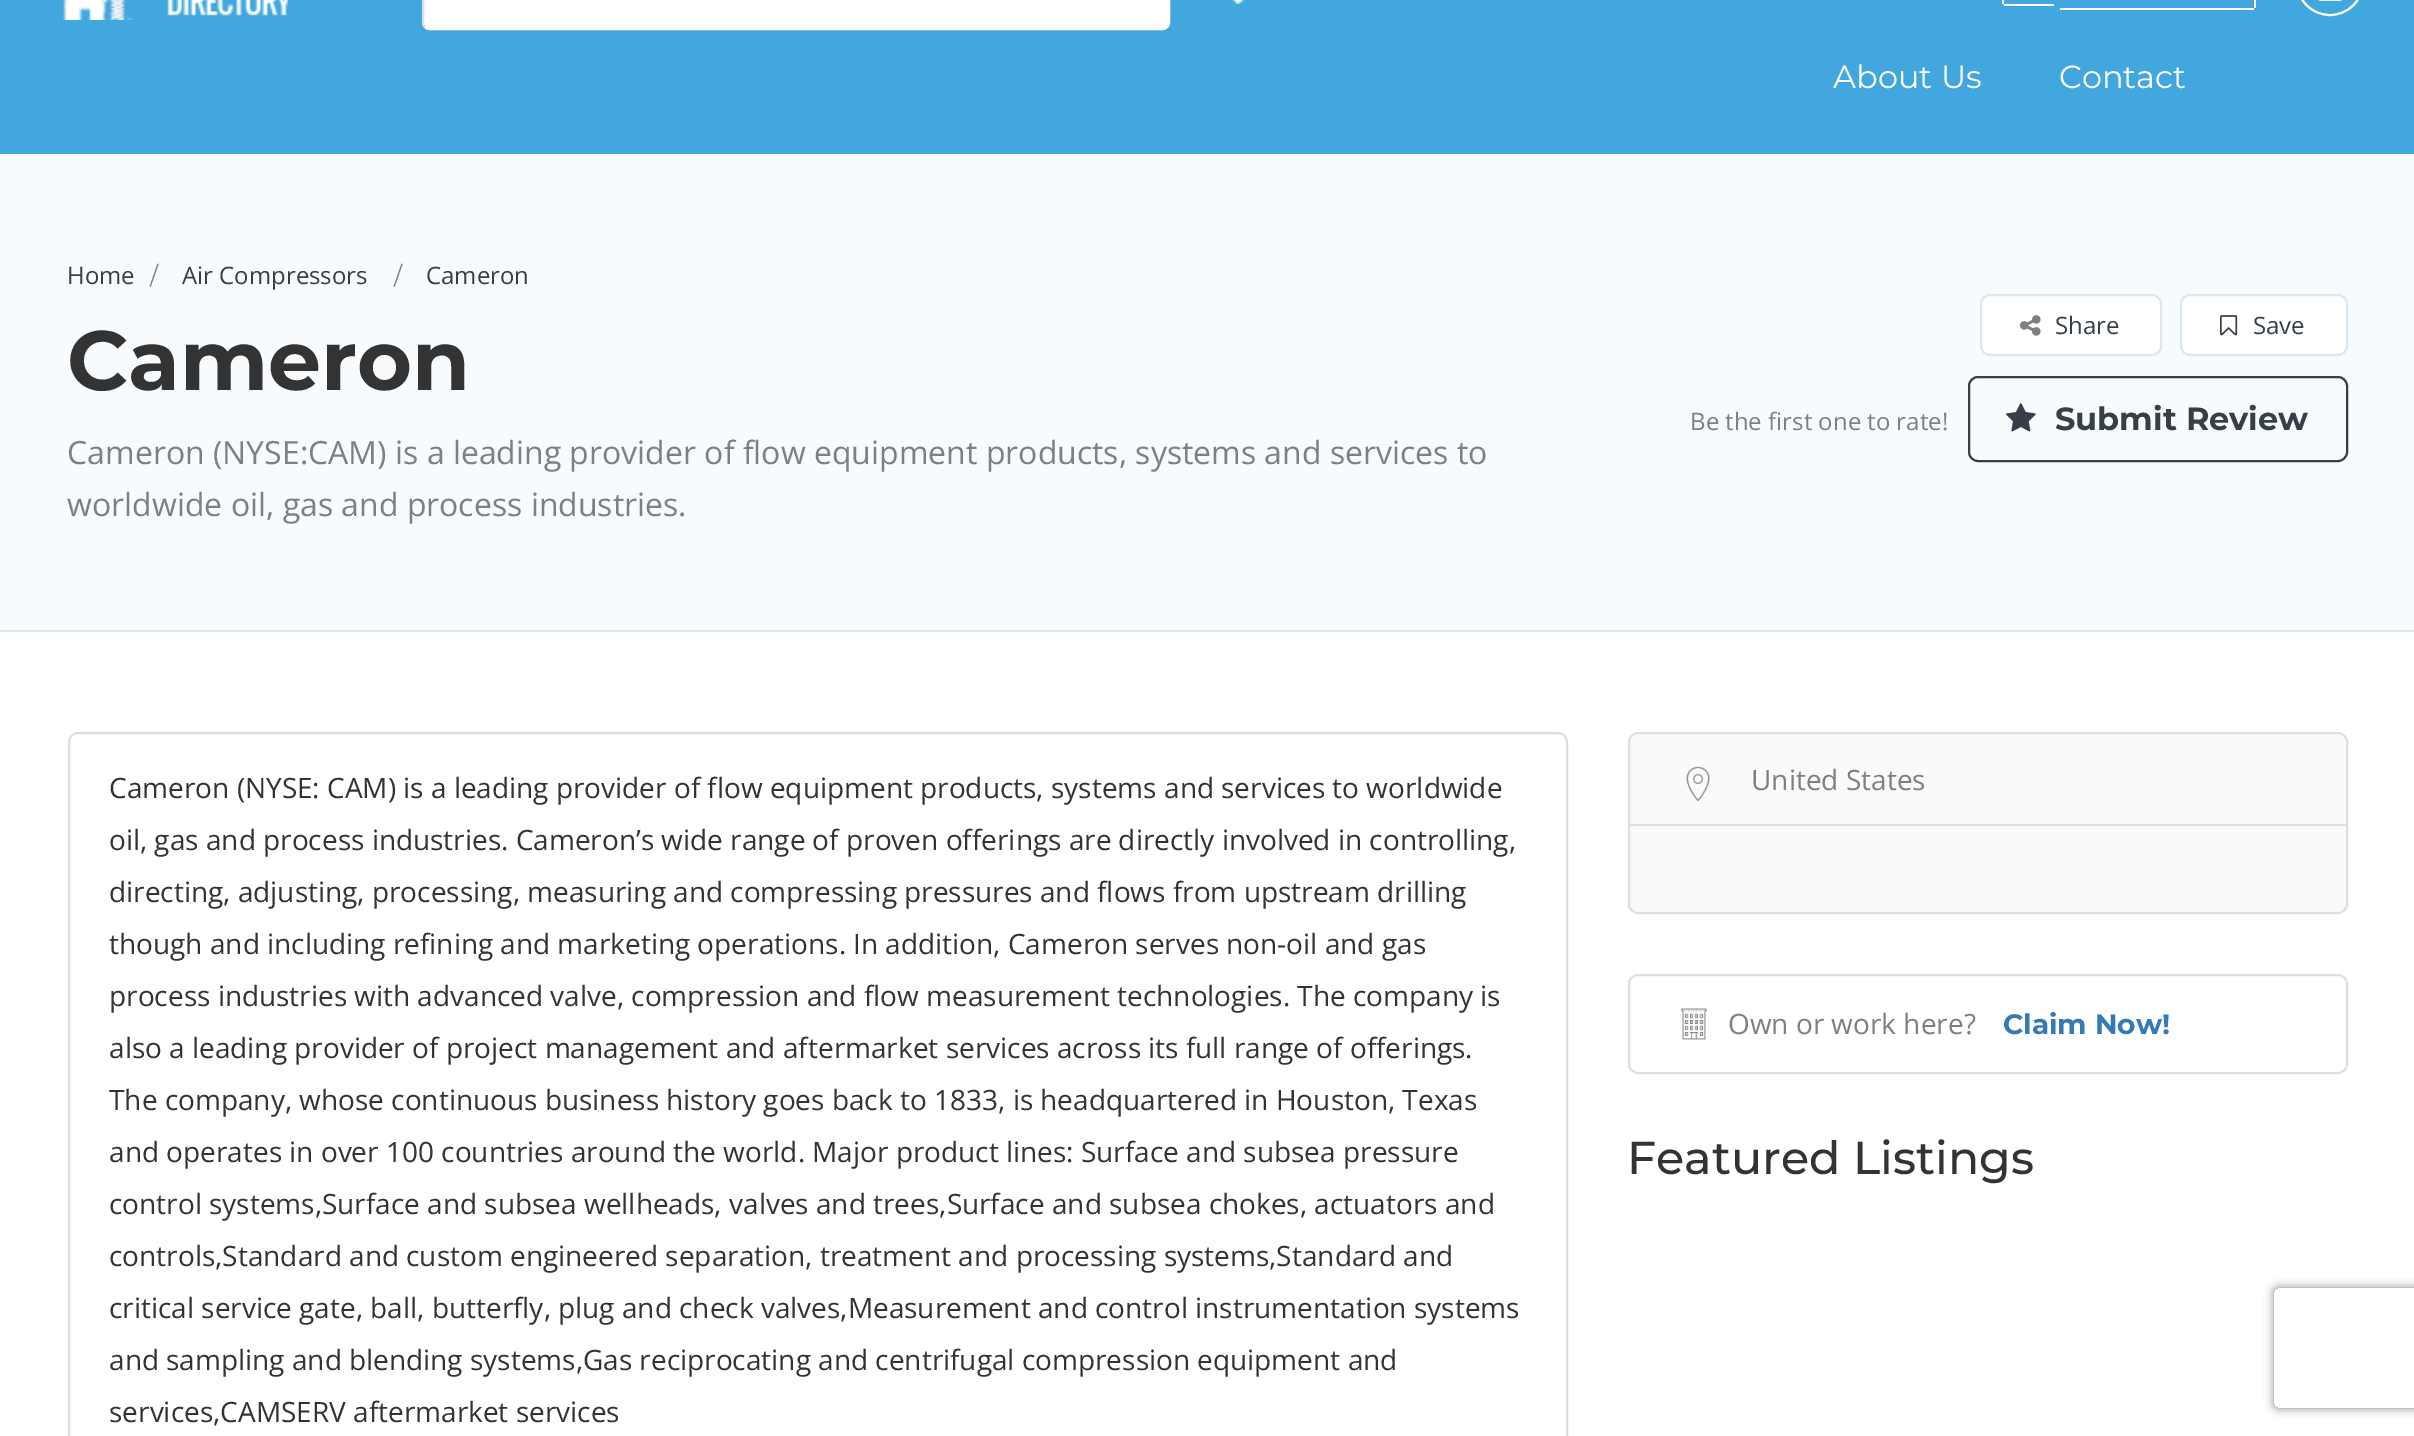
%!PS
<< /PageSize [2414 1436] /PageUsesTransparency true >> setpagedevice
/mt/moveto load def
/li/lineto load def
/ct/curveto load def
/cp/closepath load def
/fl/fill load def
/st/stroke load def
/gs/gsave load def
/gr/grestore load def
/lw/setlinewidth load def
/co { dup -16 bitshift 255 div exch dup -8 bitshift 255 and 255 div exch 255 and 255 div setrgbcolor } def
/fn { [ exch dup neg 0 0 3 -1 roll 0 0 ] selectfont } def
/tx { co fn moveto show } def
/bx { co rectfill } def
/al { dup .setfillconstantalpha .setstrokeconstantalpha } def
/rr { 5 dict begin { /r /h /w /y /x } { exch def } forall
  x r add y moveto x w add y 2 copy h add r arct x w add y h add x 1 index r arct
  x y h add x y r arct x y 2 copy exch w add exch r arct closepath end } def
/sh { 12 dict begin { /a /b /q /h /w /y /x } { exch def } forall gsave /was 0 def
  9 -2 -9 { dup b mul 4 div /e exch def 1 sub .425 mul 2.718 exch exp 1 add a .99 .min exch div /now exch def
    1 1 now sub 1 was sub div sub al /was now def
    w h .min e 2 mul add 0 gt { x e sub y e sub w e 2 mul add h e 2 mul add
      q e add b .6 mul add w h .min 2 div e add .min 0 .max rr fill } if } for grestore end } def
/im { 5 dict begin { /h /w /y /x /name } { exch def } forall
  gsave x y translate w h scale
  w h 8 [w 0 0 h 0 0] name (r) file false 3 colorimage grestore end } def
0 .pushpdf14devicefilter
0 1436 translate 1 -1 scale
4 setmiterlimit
0 0 2414 1436 16#F7FBFE bx
0 0 2414 154 16#42A7DF bx
(media/1.raw) 63 0 226 20 im
16#FFFFFF co
422 -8 748 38 8 rr fl
2 lw
425 -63 mt 426.5 -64.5 428 -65 430 -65 ct 1162 -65 li 1164 -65 1165.5 -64.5 1167 -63 ct 1168.5 -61.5 1169 -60 1169 -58 ct 1169 22 li 1169 24 1168.5 25.5 1167 27 ct 1165.5 28.5 1164 29 1162 29 ct 430 29 li 428 29 426.5 28.5 425 27 ct st
16#DEDEDE co
425 27 mt 423.5 25.5 423 24 423 22 ct 423 -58 li 423 -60 423.5 -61.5 425 -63 ct st
(media/2.raw) 1231 0 14 4 im
2002 0 2 4 16#FFFFFF bx
2004 4 50 2 16#FFFFFF bx
2254 0 2 8 16#FFFFFF bx
2060 8 194 2 16#FFFFFF bx
2297 -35 66 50 33 rr st
(media/3.raw) 2318 0 24 1 im
0 630 2414 2 16#DBE7EF bx
16#FFFFFF co
1981 295 180 60 9 rr gs fl gr
16#DBE7EF co
st
(media/4.raw) 2020 315 21 21 im
16#FFFFFF co
2181 295 166 60 9 rr gs fl gr
16#DBE7EF co
st
(media/5.raw) 2220 315 18 21 im
16#363F48 co
1969 377 378 84 9 rr st
(media/6.raw) 2006 403 30 29 im
0 632 2414 804 16#FFFFFF bx
16#DEDEDE co
69 733 1498 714 9 rr st
16#FAFAFA co
1629 733 718 180 9 rr gs fl gr
16#DEDEDE co
st
1630 824 716 2 16#DEDEDE bx
(media/7.raw) 1686 766 24 36 im
1629 975 718 98 9 rr st
(media/8.raw) 1681 1008 26 32 im
gs
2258 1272 mt 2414 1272 li 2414 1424 li 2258 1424 li cp 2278 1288 mt 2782 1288 li 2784 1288 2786 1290 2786 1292 ct 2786 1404 li 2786 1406 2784 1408 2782 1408 ct 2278 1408 li 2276 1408 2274 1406 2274 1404 ct 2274 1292 li 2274 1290 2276 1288 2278 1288 ct cp eoclip newpath
16#808080 co
2274 1288 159 120 4 5 1 sh
gr
(About Us) 1833 88 /Montserrat-Regular 32 16#FFFFFF tx
(Contact) 2059 88 /Montserrat-Regular 32 16#FFFFFF tx
(Home) 67 284 /OpenSans-Regular 24 16#363F48 tx
(/) 150 284 /Montserrat-Regular 24 16#7F7F7F tx
(Air Compressors) 182 284 /OpenSans-Regular 24 16#363F48 tx
(/) 394 284 /Montserrat-Regular 24 16#7F7F7F tx
(Cameron) 426 284 /OpenSans-Regular 24 16#363F48 tx
(Cameron) 67 390 /Montserrat-Bold 84 16#333333 tx
(Cameron \(NYSE:CAM\) is a leading provider of flow equipment products, systems and services to) 67 464 /OpenSans-Regular 32 16#7F7F7F tx
(worldwide oil, gas and process industries.) 67 516 /OpenSans-Regular 32 16#7F7F7F tx
(Share) 2055 334 /OpenSans-Regular 24 16#363F48 tx
(Save) 2253 334 /OpenSans-Regular 24 16#363F48 tx
(Be the first one to rate!) 1690 430 /OpenSans-Regular 24 16#7F7F7F tx
(Submit Review) 2055 430 /Montserrat-Bold 32 16#363F48 tx
(Cameron \(NYSE: CAM\) is a leading provider of flow equipment products, systems and services to worldwide) 109 798 /OpenSans-Regular 28 16#333333 tx
(oil, gas and process industries. Cameron’s wide range of proven offerings are directly involved in controlling,) 109 850 /OpenSans-Regular 28 16#333333 tx
(directing, adjusting, processing, measuring and compressing pressures and flows from upstream drilling) 109 902 /OpenSans-Regular 28 16#333333 tx
(though and including refining and marketing operations. In addition, Cameron serves non-oil and gas) 109 954 /OpenSans-Regular 28 16#333333 tx
(process industries with advanced valve, compression and flow measurement technologies. The company is) 109 1006 /OpenSans-Regular 28 16#333333 tx
(also a leading provider of project management and aftermarket services across its full range of offerings.) 109 1058 /OpenSans-Regular 28 16#333333 tx
(The company, whose continuous business history goes back to 1833, is headquartered in Houston, Texas) 109 1110 /OpenSans-Regular 28 16#333333 tx
(and operates in over 100 countries around the world. Major product lines: Surface and subsea pressure) 109 1162 /OpenSans-Regular 28 16#333333 tx
(control systems,Surface and subsea wellheads, valves and trees,Surface and subsea chokes, actuators and) 109 1214 /OpenSans-Regular 28 16#333333 tx
(controls,Standard and custom engineered separation, treatment and processing systems,Standard and) 109 1266 /OpenSans-Regular 28 16#333333 tx
(critical service gate, ball, butterfly, plug and check valves,Measurement and control instrumentation systems) 109 1318 /OpenSans-Regular 28 16#333333 tx
(and sampling and blending systems,Gas reciprocating and centrifugal compression equipment and) 109 1370 /OpenSans-Regular 28 16#333333 tx
(services,CAMSERV aftermarket services) 109 1422 /OpenSans-Regular 28 16#333333 tx
(United States) 1751 790 /OpenSans-Regular 28 16#7F7F7F tx
(Own or work here?) 1728 1034 /OpenSans-Regular 28 16#7F7F7F tx
(Claim Now!) 2003 1034 /Montserrat-Bold 28 16#337AB7 tx
(Featured Listings) 1627 1174 /Montserrat-Medium 46 16#333333 tx
.poppdf14devicefilter showpage
